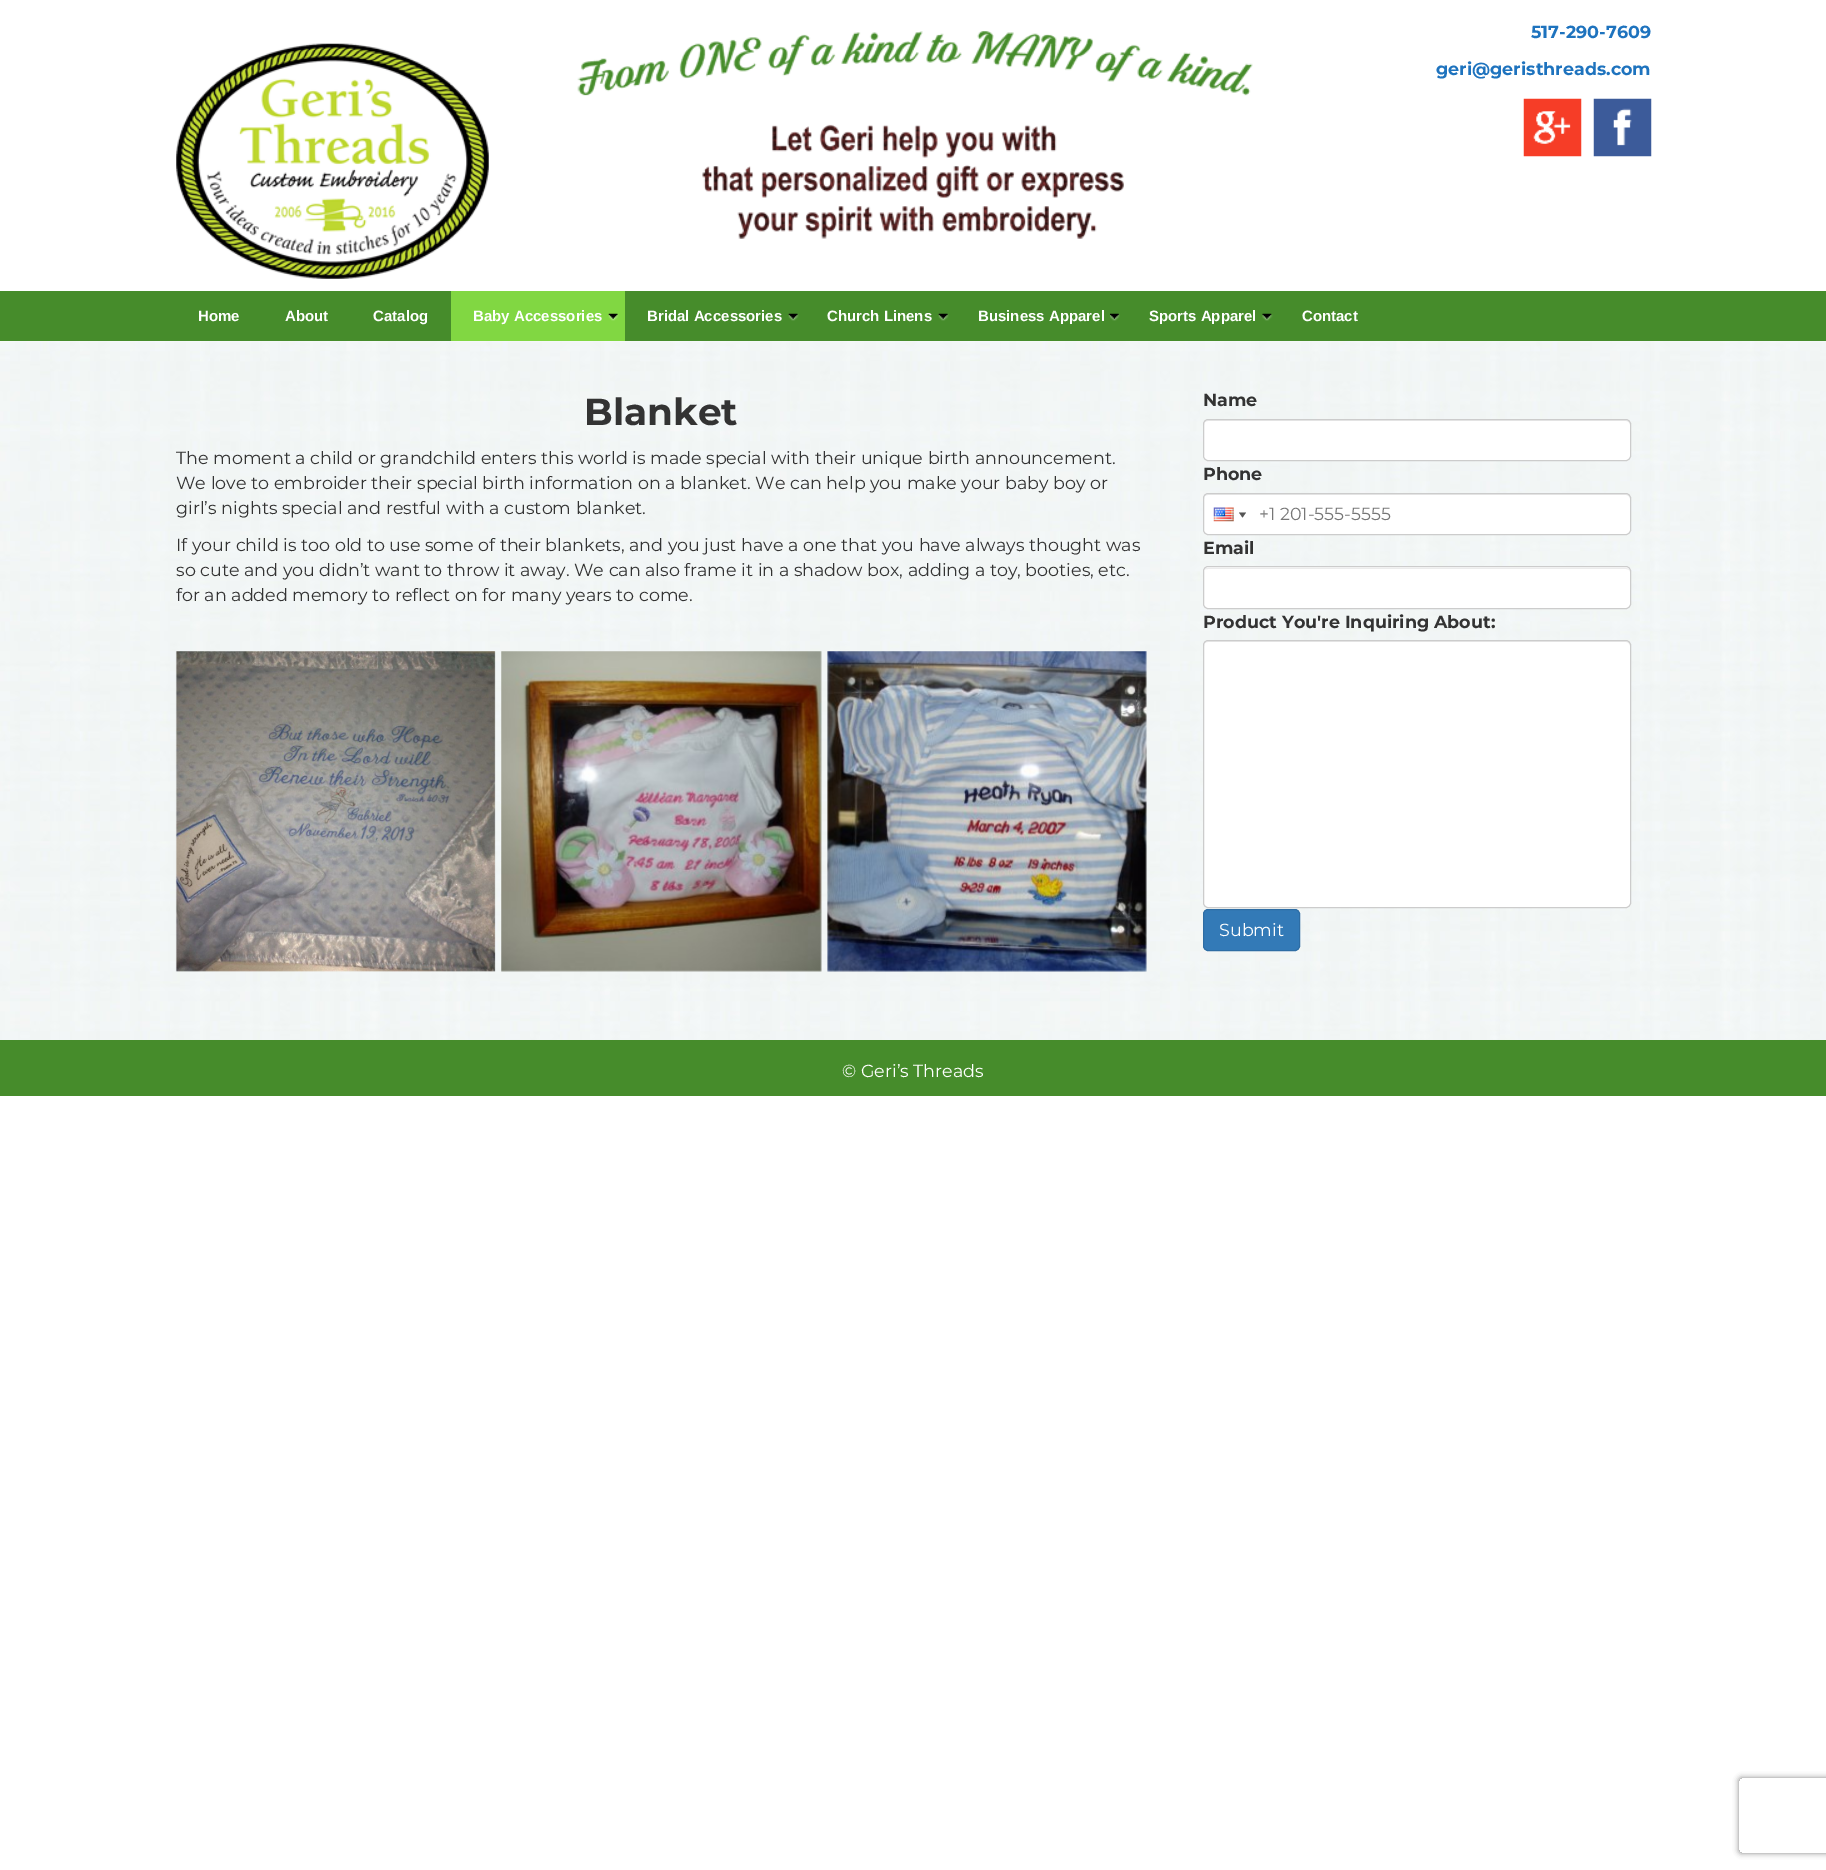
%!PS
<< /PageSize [1826 1870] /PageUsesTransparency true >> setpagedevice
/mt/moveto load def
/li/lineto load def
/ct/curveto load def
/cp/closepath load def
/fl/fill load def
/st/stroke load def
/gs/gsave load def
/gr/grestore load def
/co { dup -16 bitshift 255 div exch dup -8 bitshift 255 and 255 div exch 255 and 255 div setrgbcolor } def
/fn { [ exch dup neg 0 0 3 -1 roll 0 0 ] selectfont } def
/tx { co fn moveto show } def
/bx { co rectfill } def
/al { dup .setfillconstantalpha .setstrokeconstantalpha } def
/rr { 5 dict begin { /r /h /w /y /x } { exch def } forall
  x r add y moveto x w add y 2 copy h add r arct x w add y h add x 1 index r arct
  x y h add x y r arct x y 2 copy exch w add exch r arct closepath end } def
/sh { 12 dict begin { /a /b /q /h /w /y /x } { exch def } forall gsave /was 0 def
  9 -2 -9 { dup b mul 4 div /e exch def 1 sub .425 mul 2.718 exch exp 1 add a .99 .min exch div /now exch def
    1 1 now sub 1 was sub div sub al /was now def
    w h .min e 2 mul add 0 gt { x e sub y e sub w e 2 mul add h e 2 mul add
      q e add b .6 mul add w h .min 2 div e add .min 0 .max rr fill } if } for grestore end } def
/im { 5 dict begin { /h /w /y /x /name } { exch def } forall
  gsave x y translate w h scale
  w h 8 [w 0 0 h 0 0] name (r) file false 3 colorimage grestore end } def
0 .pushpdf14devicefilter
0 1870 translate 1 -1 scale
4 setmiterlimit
0 0 1826 1870 16#FFFFFF bx
(media/1.raw) 176 43 313 236 im
(media/2.raw) 577 31 676 65 im
(media/3.raw) 702 124 422 115 im
(media/4.raw) 1523 98 59 59 im
(media/5.raw) 1593 98 59 59 im
0 291 1826 50 16#468C2B bx
451 291 174 50 16#81D742 bx
(media/6.raw) 608 313 11 8 im
(media/7.raw) 788 313 11 8 im
(media/8.raw) 938 313 11 8 im
(media/9.raw) 1110 313 10 8 im
(media/10.raw) 1262 313 11 8 im
(media/11.raw) 0 341 1826 699 im
(media/12.raw) 175 651 321 321 im
(media/13.raw) 501 651 321 321 im
(media/14.raw) 827 651 320 321 im
16#FFFFFF co
1203 419 428 42 5 rr fl
16#ECECEC co
1208 421 mt 1626 421 li 1628 421 1630 423 1630 425 ct 1630 422 1629 420 1626 420 ct 1208 420 li 1207 420 1205 421 1205 422 ct 1204 425 li 1204 423 1205 421 1208 421 ct cp fl
16#CCCCCC co
1203.5 419.5 427 41 4.5 rr st
16#FFFFFF co
1203 493 428 42 5 rr fl
16#ECECEC co
1208 495 mt 1626 495 li 1628 495 1630 497 1630 499 ct 1630 496 1629 494 1626 494 ct 1208 494 li 1207 494 1205 495 1205 496 ct 1204 499 li 1204 497 1205 495 1208 495 ct cp fl
16#CCCCCC co
1203.5 493.5 427 41 4.5 rr st
(media/15.raw) 1213 507 21 15 im
16#555555 co
1239 512.5 mt 1246 512.5 li 1242.5 517.5 li cp fl
16#FFFFFF co
1203 566 428 43 5 rr fl
16#ECECEC co
1208 569 mt 1626 569 li 1628 569 1630 570 1630 572 ct 1630 570 1628 568 1626 568 ct 1208 568 li 1206 568 1205 569 1204 570 ct 1205 569 1206 569 1208 569 ct cp fl
16#CCCCCC co
1203.5 566.5 427 42 4.5 rr st
16#FFFFFF co
1203 640 428 268 5 rr fl
16#ECECEC co
1208 642 mt 1626 642 li 1628 642 1630 644 1630 646 ct 1630 643 1629 641 1626 641 ct 1208 641 li 1207 641 1205 642 1205 643 ct 1204 646 li 1204 644 1205 642 1208 642 ct cp fl
16#CCCCCC co
1203.5 640.5 427 267 4.5 rr st
16#337AB7 co
1203.5 909.5 96 41 4.5 rr gs fl gr
16#2E6DA4 co
st
0 1040 1826 56 16#468C2B bx
gs
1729 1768 mt 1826 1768 li 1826 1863 li 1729 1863 li cp 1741.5 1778 mt 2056.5 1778 li 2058 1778 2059 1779 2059 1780.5 ct 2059 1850.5 li 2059 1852 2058 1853 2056.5 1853 ct 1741.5 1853 li 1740 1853 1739 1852 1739 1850.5 ct 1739 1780.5 li 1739 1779 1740 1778 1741.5 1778 ct cp eoclip newpath
16#808080 co
1739 1778 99 75 2.5 3 1 sh
gr
(517-290-7609) 1531 38 /Montserrat-Bold 17.5 16#1E73BE tx
(geri@geristhreads.com) 1436 75 /Montserrat-Bold 17.5 16#1E73BE tx
(Home) 198 321 /LiberationSans-Bold 15 16#FFFFFF tx
(About) 285 321 /LiberationSans-Bold 15 16#FFFFFF tx
(Catalog) 373 321 /LiberationSans-Bold 15 16#FFFFFF tx
(Baby Accessories) 473 321 /LiberationSans-Bold 15 16#FFFFFF tx
(Bridal Accessories) 647 321 /LiberationSans-Bold 15 16#FFFFFF tx
(Church Linens) 827 321 /LiberationSans-Bold 15 16#FFFFFF tx
(Business Apparel) 978 321 /LiberationSans-Bold 15 16#FFFFFF tx
(Sports Apparel) 1149 321 /LiberationSans-Bold 15 16#FFFFFF tx
(Contact) 1302 321 /LiberationSans-Bold 15 16#FFFFFF tx
(Blanket) 584 425 /Montserrat-Bold 37.5 16#333333 tx
(The moment a child or grandchild enters this world is made special with their unique birth announcement.) 176 464 /Montserrat-Regular 17.5 16#333333 tx
(We love to embroider their special birth information on a blanket. We can help you make your baby boy or) 176 489 /Montserrat-Regular 17.5 16#333333 tx
(girl’s nights special and restful with a custom blanket.) 176 514 /Montserrat-Regular 17.5 16#333333 tx
(If your child is too old to use some of their blankets, and you just have a one that you have always thought was) 176 551 /Montserrat-Regular 17.5 16#333333 tx
(so cute and you didn’t want to throw it away. We can also frame it in a shadow box, adding a toy, booties, etc.) 176 576 /Montserrat-Regular 17.5 16#333333 tx
(for an added memory to reflect on for many years to come.) 176 601 /Montserrat-Regular 17.5 16#333333 tx
(Name) 1203 406 /Montserrat-Bold 17.5 16#333333 tx
(Phone) 1203 480 /Montserrat-Bold 17.5 16#333333 tx
(+1 201-555-5555) 1259 520 /Montserrat-Regular 17.5 16#777777 tx
(Email) 1203 554 /Montserrat-Bold 17.5 16#333333 tx
(Product You're Inquiring About:) 1203 628 /Montserrat-Bold 17.5 16#333333 tx
(Submit) 1219 936 /Montserrat-Regular 17.5 16#FFFFFF tx
(© Geri’s Threads) 842 1077 /Montserrat-Regular 17.5 16#FFFFFF tx
.poppdf14devicefilter showpage
